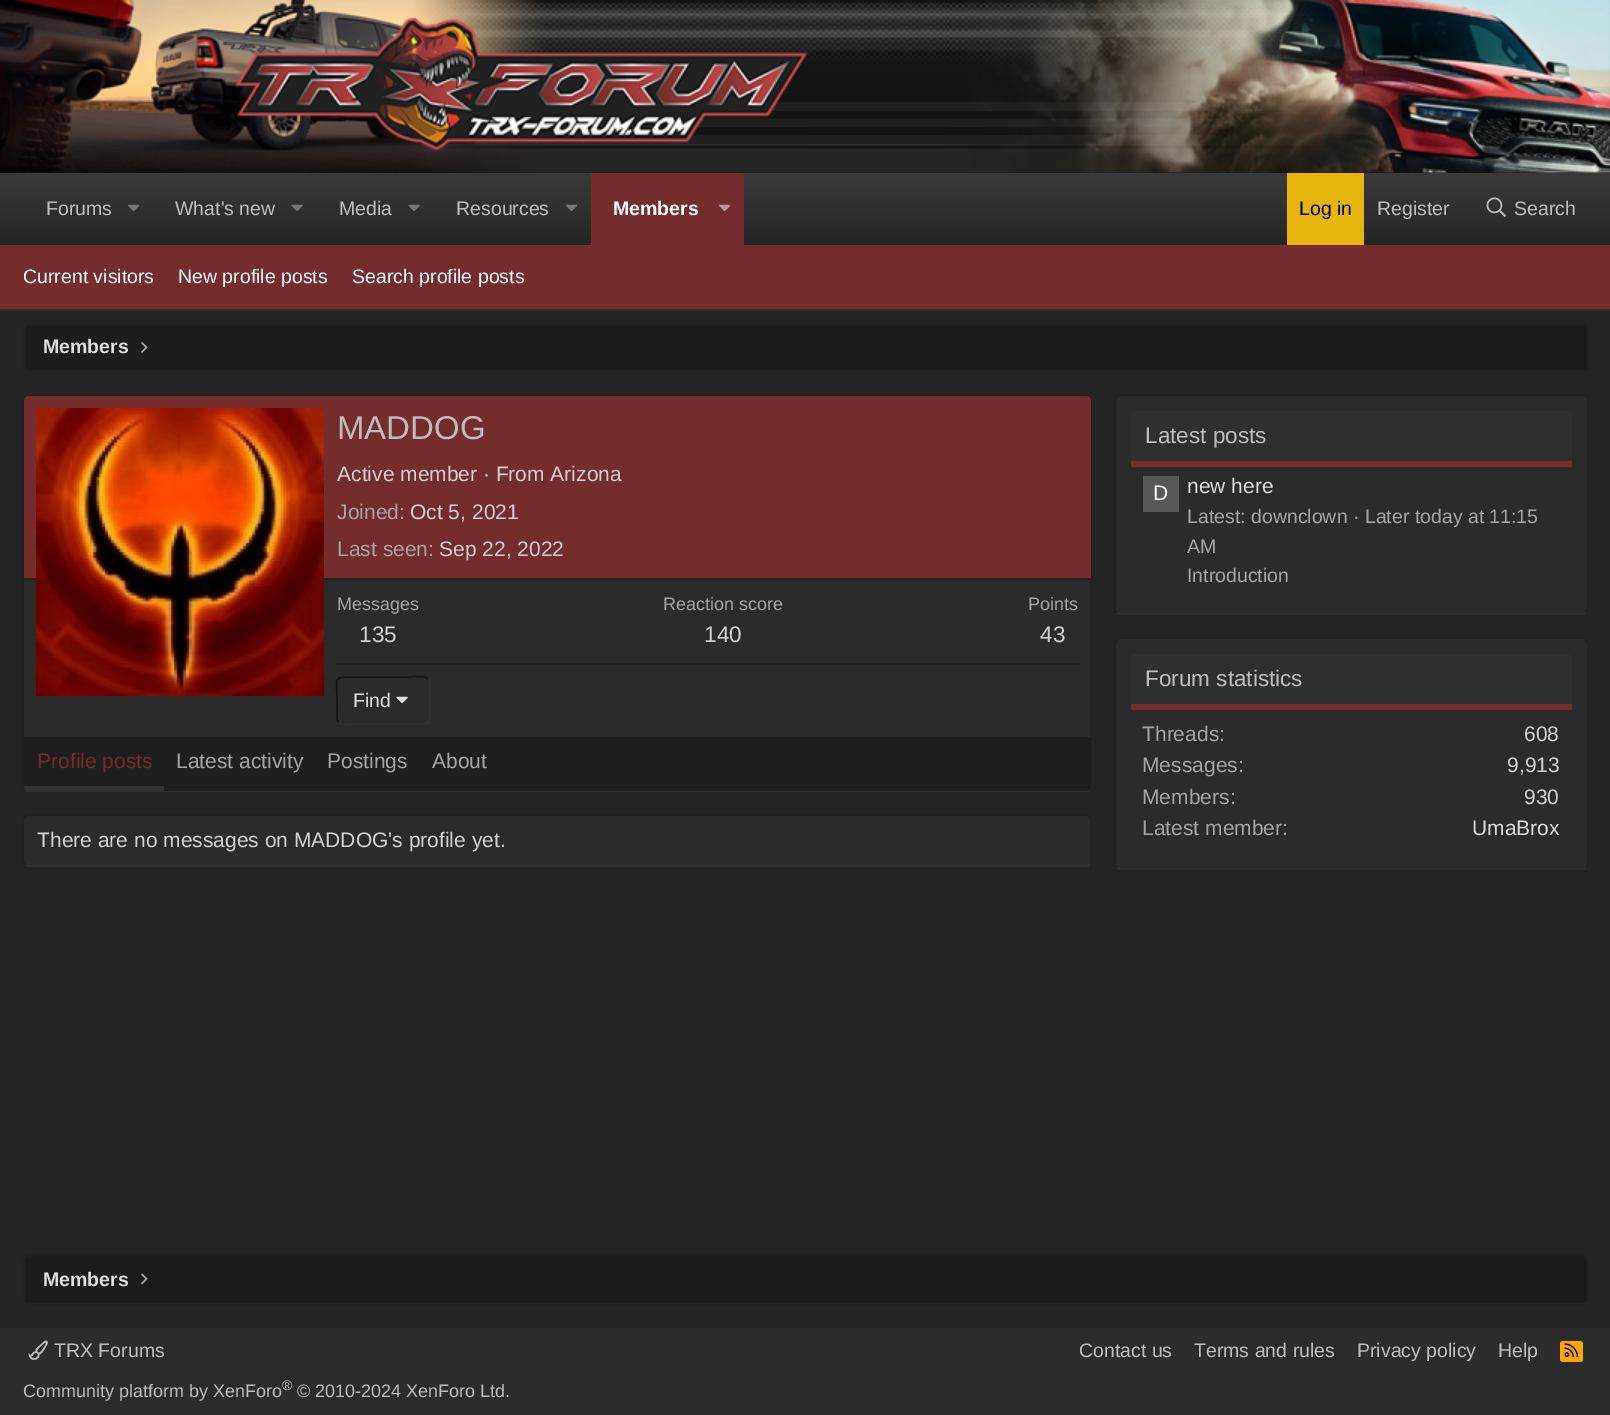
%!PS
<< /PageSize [1610 1415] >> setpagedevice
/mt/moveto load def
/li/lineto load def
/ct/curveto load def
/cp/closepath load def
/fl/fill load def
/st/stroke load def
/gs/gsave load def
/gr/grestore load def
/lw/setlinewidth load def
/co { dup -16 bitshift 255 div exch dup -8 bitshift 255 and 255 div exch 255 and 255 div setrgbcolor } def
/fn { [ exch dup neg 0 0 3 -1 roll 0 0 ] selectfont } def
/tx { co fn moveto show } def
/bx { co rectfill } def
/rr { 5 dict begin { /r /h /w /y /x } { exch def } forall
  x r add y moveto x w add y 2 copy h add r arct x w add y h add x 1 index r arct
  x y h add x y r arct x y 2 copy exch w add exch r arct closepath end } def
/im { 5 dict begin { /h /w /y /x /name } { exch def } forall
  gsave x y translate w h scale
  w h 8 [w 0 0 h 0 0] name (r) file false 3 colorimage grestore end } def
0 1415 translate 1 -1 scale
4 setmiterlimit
0 0 1610 1415 16#252525 bx
0 172 1610 1 16#1F1F1F bx
(media/1.raw) 808 0 139 172 im
(media/2.raw) 0 0 808 173 im
(media/3.raw) 946 0 664 173 im
gs 0 173 mt 1610 173 li 1610 240 li 0 240 li cp clip newpath
<< /ShadingType 2 /ColorSpace /DeviceRGB /Coords [806 172 806 245] /Extend [true true] /Function << /FunctionType 2 /Domain [0 1] /C0 [.227 .227 .227] /C1 [.149 .149 .149] /N 1 >> >> shfill gr
(media/4.raw) 128 204 12 8 im
(media/5.raw) 291 204 12 7 im
(media/5.raw) 408 204 12 7 im
(media/4.raw) 566 204 12 8 im
16#742C2D co
594 173 mt 741 173 li 742.5 173 744 174.5 744 176 ct 744 245 li 591 245 li 591 176 li 591 174.5 592.5 173 594 173 ct cp fl
(media/6.raw) 719 204 12 8 im
1287 173 77 72 16#E6B60E bx
(media/7.raw) 1486 197 20 20 im
0 245 1610 64 16#742C2D bx
0 309 1610 2 16#303030 bx
16#1D1D1D co
24 324 1564 47 5 rr gs fl gr
16#232323 co
2 lw
st
(media/8.raw) 141 342 7 11 im
16#2B2B2B co
23 395 1069 397 6 rr fl
16#303030 co
1.5 lw
1089.5 789.5 mt 1088.5 790.5 1087.5 791 1086 791 ct 28.5 791 li 27 791 26 790.5 25 789.5 ct st
16#232323 co
25 789.5 mt 24 788.5 23 787.5 23 786 ct 23 400.5 li 23 399 24 398 25 397 ct 26 396 27 395 28.5 395 ct 1086 395 li 1087.5 395 1088.5 396 1089.5 397 ct 1090.5 398 1091 399 1091 400.5 ct 1091 786 li 1091 787.5 1090.5 788.5 1089.5 789.5 ct st
16#742C2D co
29 396 mt 1086 396 li 1089 396 1091 398 1091 401 ct 1091 579 li 24 579 li 24 401 li 24 398 26 396 29 396 ct cp fl
24 578 1067 2 16#232323 bx
(media/9.raw) 36 408 288 288 im
336 663 743 2 16#232323 bx
16#303030 co
428 679 mt 430.5 681 430 685.5 430 688.5 ct 430 700.5 li 430 725 434.5 724 411 724 ct 356 724 li 355 724 342 726 338.5 722 ct st
16#161616 co
338.5 722 mt 336 720 337 715.5 337 712.5 ct 337 700.5 li 337 676 332 677 356 677 ct 411 677 li 411.5 677 424.5 675 428 679 ct st
(media/10.raw) 396 696 12 8 im
16#1F1F1F co
24 737 mt 1091 737 li 1091 786 li 1091 789 1089 791 1086 791 ct 29 791 li 26 791 24 789 24 786 ct cp fl
16#333333 co
24 786 mt 164 786 li 164 791 li 29 791 li 26 791 24 789 24 786 ct cp fl
16#2B2B2B co
23 815 1069 52 6 rr fl
16#303030 co
1089.5 864.5 mt 1088.5 865.5 1087.5 866 1086 866 ct 28.5 866 li 27 866 26 865.5 25 864.5 ct st
16#232323 co
25 864.5 mt 24 863.5 23 862.5 23 861 ct 23 820.5 li 23 819 24 818 25 817 ct 26 816 27 815 28.5 815 ct 1086 815 li 1087.5 815 1088.5 816 1089.5 817 ct 1090.5 818 1091 819 1091 820.5 ct 1091 861 li 1091 862.5 1090.5 863.5 1089.5 864.5 ct st
16#2B2B2B co
1115 395 474 220 6 rr fl
16#303030 co
1586 612.5 mt 1585 613.5 1584 614 1582.5 614 ct 1120.5 614 li 1119 614 1118 613.5 1117 612.5 ct st
16#232323 co
1117 612.5 mt 1116 611.5 1115 610.5 1115 609 ct 1115 400.5 li 1115 399 1116 398 1117 397 ct 1118 396 1119 395 1120.5 395 ct 1582.5 395 li 1584 395 1585 396 1586 397 ct 1587 398 1588 399 1588 400.5 ct 1588 609 li 1588 610.5 1587 611.5 1586 612.5 ct st
16#2F2F2F co
1136 411 mt 1567 411 li 1570 411 1572 413 1572 416 ct 1572 467 li 1131 467 li 1131 416 li 1131 413 1133 411 1136 411 ct cp fl
1131 461 441 6 16#742C2D bx
1143 476 36 36 16#585858 bx
16#2B2B2B co
1115 638 474 232 6 rr fl
16#303030 co
1586 867.5 mt 1585 868.5 1584 869 1582.5 869 ct 1120.5 869 li 1119 869 1118 868.5 1117 867.5 ct st
16#232323 co
1117 867.5 mt 1116 866.5 1115 865.5 1115 864 ct 1115 643.5 li 1115 642 1116 641 1117 640 ct 1118 639 1119 638 1120.5 638 ct 1582.5 638 li 1584 638 1585 639 1586 640 ct 1587 641 1588 642 1588 643.5 ct 1588 864 li 1588 865.5 1587 866.5 1586 867.5 ct st
16#2F2F2F co
1136 654 mt 1567 654 li 1570 654 1572 656 1572 659 ct 1572 710 li 1131 710 li 1131 659 li 1131 656 1133 654 1136 654 ct cp fl
1131 704 441 6 16#742C2D bx
16#1D1D1D co
24 1255 1564 49 5 rr gs fl gr
16#232323 co
2 lw
st
(media/11.raw) 141 1273 7 12 im
0 1328 1610 87 16#2C2C2C bx
(media/12.raw) 28 1340 20 20 im
16#FFA500 co
1560 1341 23 21 3 rr fl
(media/13.raw) 1564 1343 15 14 im
(Forums) 46 215 /LiberationSans-Regular 19.5 16#BDBDBD tx
(What's new) 175 215 /LiberationSans-Regular 19.5 16#BDBDBD tx
(Media) 339 215 /LiberationSans-Regular 19.5 16#BDBDBD tx
(Resources) 456 215 /LiberationSans-Regular 19.5 16#BDBDBD tx
(Members) 613 215 /LiberationSans-Bold 19.5 16#FFFFFF tx
(Log in) 1299 215 /LiberationSans-Regular 19.5 16#000000 tx
(Register) 1377 215 /LiberationSans-Regular 19.5 16#BDBDBD tx
(Search) 1514 215 /LiberationSans-Regular 19.5 16#BDBDBD tx
(Current visitors) 23 283 /LiberationSans-Regular 19.5 16#FFFFFF tx
(New profile posts) 178 283 /LiberationSans-Regular 19.5 16#FFFFFF tx
(Search profile posts) 352 283 /LiberationSans-Regular 19.5 16#FFFFFF tx
(Members) 43 353 /LiberationSans-Bold 19.5 16#DEDEDE tx
(MADDOG) 337 439 /LiberationSans-Regular 33 16#BDBDBD tx
(Active member · From Arizona) 337 481 /LiberationSans-Regular 21 16#D2D2D2 tx
(Joined:) 337 519 /LiberationSans-Regular 21 16#A5A5A5 tx
(Oct 5, 2021) 410 519 /LiberationSans-Regular 21 16#D2D2D2 tx
(Last seen:) 337 556 /LiberationSans-Regular 21 16#A5A5A5 tx
(Sep 22, 2022) 439 556 /LiberationSans-Regular 21 16#D2D2D2 tx
(Messages) 337 610 /LiberationSans-Regular 18 16#A5A5A5 tx
(135) 359 642 /LiberationSans-Regular 22.5 16#D2D2D2 tx
(Reaction score) 663 610 /LiberationSans-Regular 18 16#A5A5A5 tx
(140) 704 642 /LiberationSans-Regular 22.5 16#D2D2D2 tx
(Points) 1028 610 /LiberationSans-Regular 18 16#A5A5A5 tx
(43) 1040 642 /LiberationSans-Regular 22.5 16#D2D2D2 tx
(Find) 353 707 /LiberationSans-Regular 19.5 16#DEDEDE tx
(Profile posts) 37 768 /LiberationSans-Regular 21 16#742C2D tx
(Latest activity) 176 768 /LiberationSans-Regular 21 16#A5A5A5 tx
(Postings) 327 768 /LiberationSans-Regular 21 16#A5A5A5 tx
(About) 432 768 /LiberationSans-Regular 21 16#A5A5A5 tx
(There are no messages on MADDOG's profile yet.) 37 847 /LiberationSans-Regular 21 16#D2D2D2 tx
(Latest posts) 1145 443 /LiberationSans-Regular 22.5 16#BDBDBD tx
(D) 1153 500 /LiberationSans-Regular 21 16#FFFFFF tx
(new here) 1187 493 /LiberationSans-Regular 21 16#DEDEDE tx
(Latest: downclown · Later today at 11:15) 1187 523 /LiberationSans-Regular 19.5 16#A5A5A5 tx
(AM) 1187 553 /LiberationSans-Regular 19.5 16#A5A5A5 tx
(Introduction) 1187 582 /LiberationSans-Regular 19.5 16#A5A5A5 tx
(Forum statistics) 1145 686 /LiberationSans-Regular 22.5 16#BDBDBD tx
(Threads:) 1142 741 /LiberationSans-Regular 21 16#A5A5A5 tx
(608) 1524 741 /LiberationSans-Regular 21 16#D2D2D2 tx
(Messages:) 1142 772 /LiberationSans-Regular 21 16#A5A5A5 tx
(9,913) 1507 772 /LiberationSans-Regular 21 16#D2D2D2 tx
(Members:) 1142 804 /LiberationSans-Regular 21 16#A5A5A5 tx
(930) 1524 804 /LiberationSans-Regular 21 16#D2D2D2 tx
(Latest member:) 1142 835 /LiberationSans-Regular 21 16#A5A5A5 tx
(UmaBrox) 1472 835 /LiberationSans-Regular 21 16#DEDEDE tx
(Members) 43 1286 /LiberationSans-Bold 19.5 16#DEDEDE tx
(TRX Forums) 54 1357 /LiberationSans-Regular 19.5 16#BDBDBD tx
(Contact us) 1079 1357 /LiberationSans-Regular 19.5 16#BDBDBD tx
(Terms and rules) 1194 1357 /LiberationSans-Regular 19.5 16#BDBDBD tx
(Privacy policy) 1357 1357 /LiberationSans-Regular 19.5 16#BDBDBD tx
(Help) 1498 1357 /LiberationSans-Regular 19.5 16#BDBDBD tx
(Community platform by XenForo) 23 1397 /LiberationSans-Regular 18 16#BDBDBD tx
(®) 282 1390 /LiberationSans-Regular 14 16#BDBDBD tx
(© 2010-2024 XenForo Ltd.) 297 1397 /LiberationSans-Regular 18 16#BDBDBD tx
showpage
